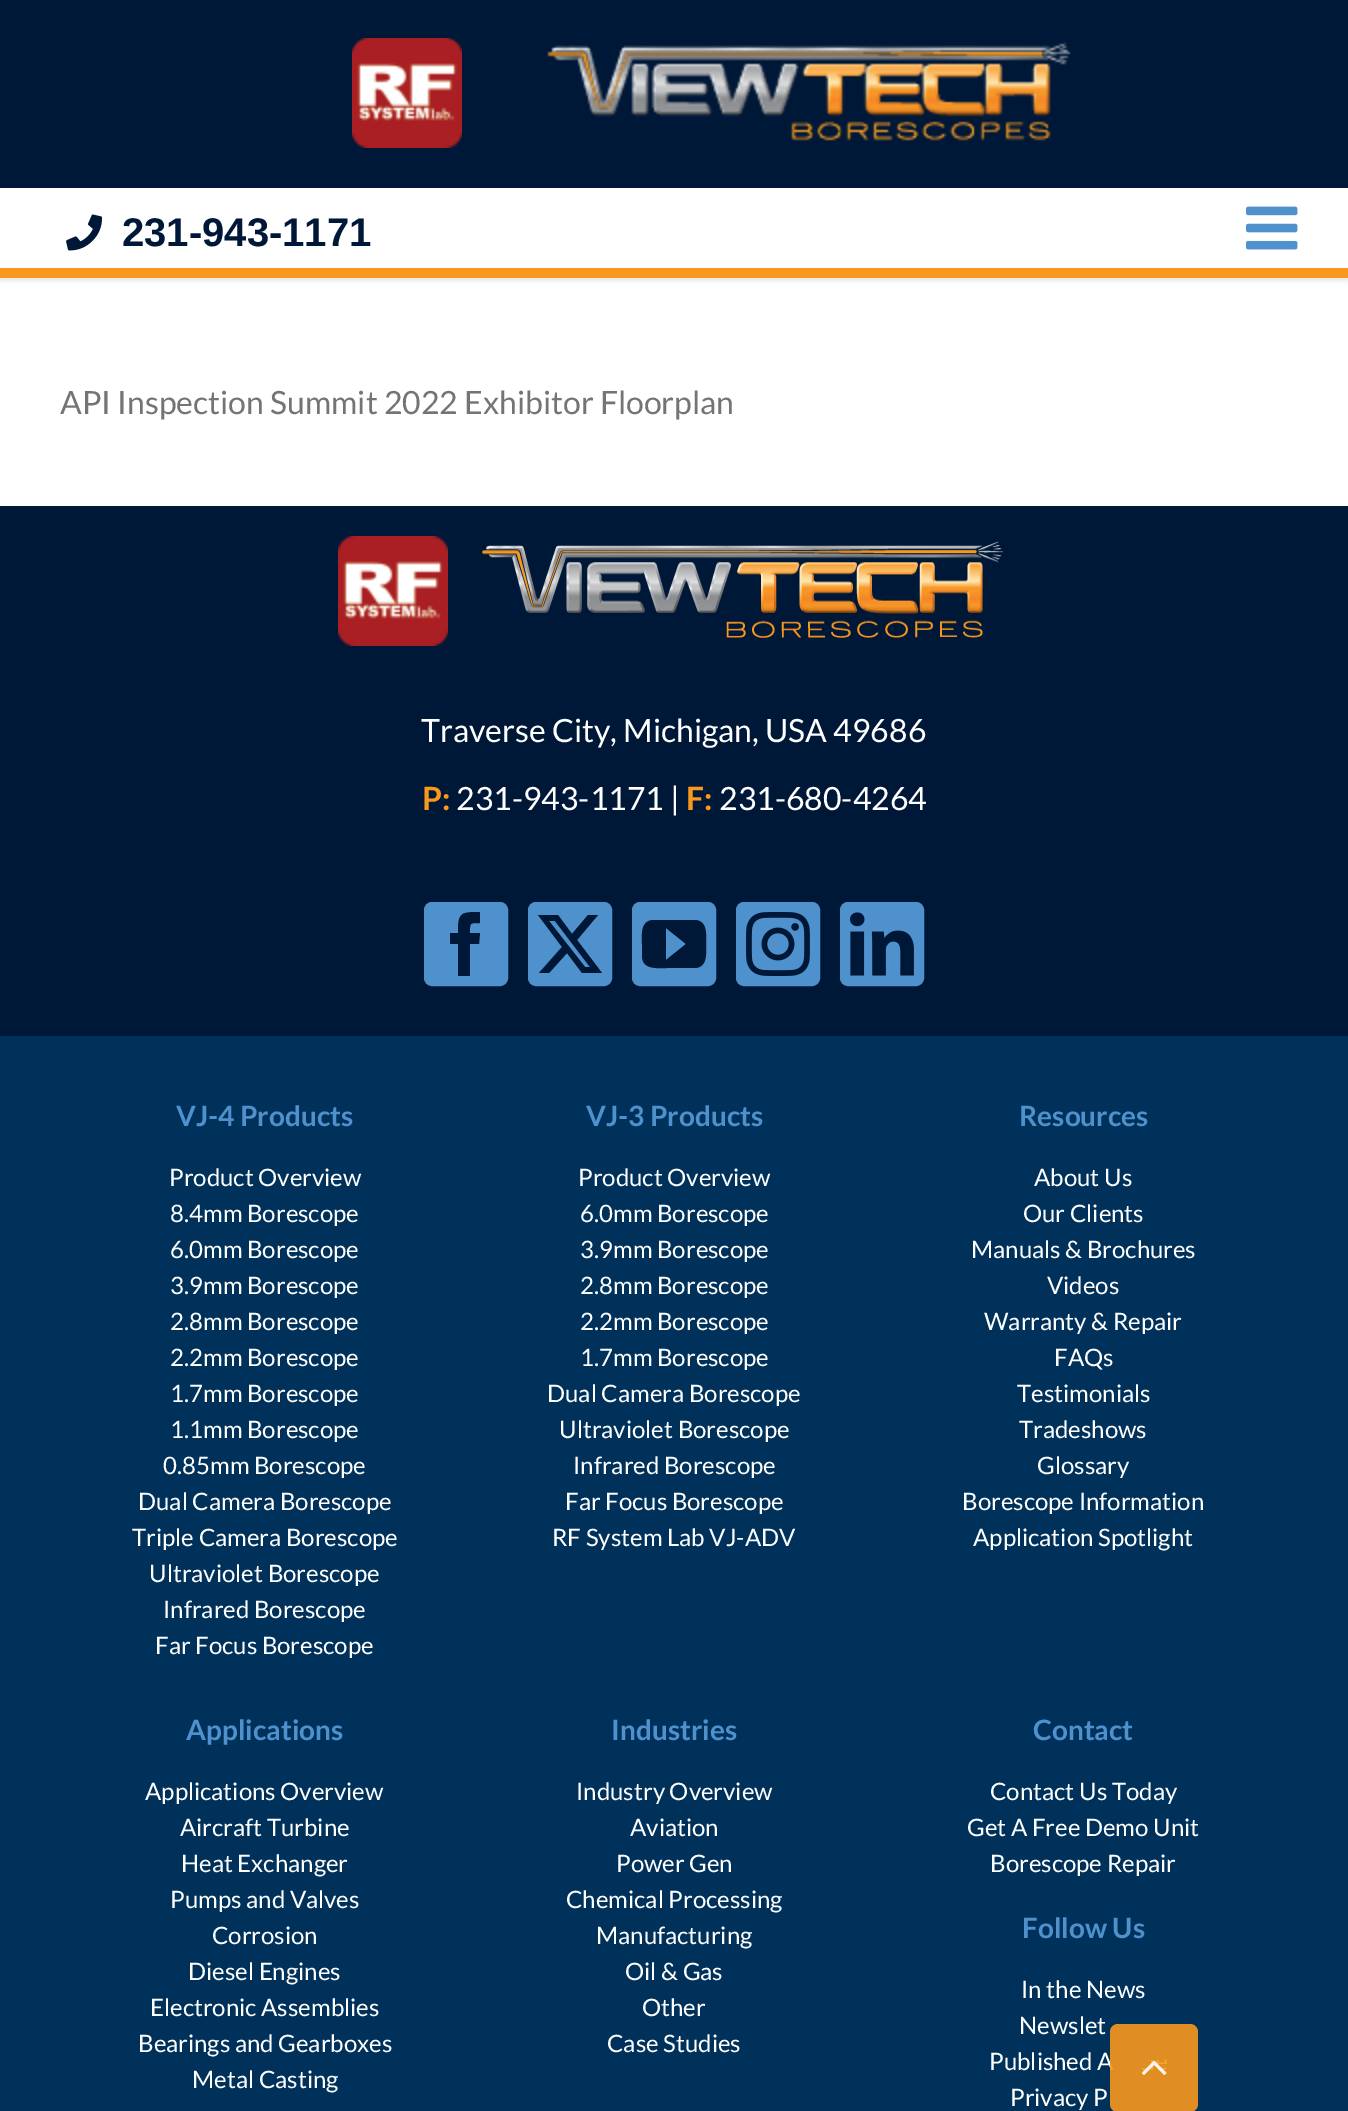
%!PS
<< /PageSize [1348 2111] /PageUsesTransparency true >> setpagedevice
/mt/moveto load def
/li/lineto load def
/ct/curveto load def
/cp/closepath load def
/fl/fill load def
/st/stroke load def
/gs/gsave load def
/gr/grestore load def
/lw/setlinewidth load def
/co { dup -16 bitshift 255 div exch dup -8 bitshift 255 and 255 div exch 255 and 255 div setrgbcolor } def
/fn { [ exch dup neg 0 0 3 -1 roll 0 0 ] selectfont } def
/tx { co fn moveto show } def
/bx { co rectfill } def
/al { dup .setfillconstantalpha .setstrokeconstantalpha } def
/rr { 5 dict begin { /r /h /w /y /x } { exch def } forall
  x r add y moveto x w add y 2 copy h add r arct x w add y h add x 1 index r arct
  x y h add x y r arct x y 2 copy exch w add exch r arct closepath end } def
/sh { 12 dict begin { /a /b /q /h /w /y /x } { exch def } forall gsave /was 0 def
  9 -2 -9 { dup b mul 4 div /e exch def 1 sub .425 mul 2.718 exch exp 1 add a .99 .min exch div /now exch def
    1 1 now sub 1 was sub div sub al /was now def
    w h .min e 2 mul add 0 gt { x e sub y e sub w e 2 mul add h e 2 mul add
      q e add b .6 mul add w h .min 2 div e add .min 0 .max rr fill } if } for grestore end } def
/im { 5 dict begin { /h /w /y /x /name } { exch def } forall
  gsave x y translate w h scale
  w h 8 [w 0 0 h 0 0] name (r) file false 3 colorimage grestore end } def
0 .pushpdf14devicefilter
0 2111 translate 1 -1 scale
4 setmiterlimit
0 0 1348 2111 16#FFFFFF bx
16#000000 co
0 0 1348 280 0 3 .12 sh
0 0 1348 188 16#001838 bx
(media/1.raw) 352 38 110 110 im
(media/2.raw) 547 42 524 99 im
0 188 1348 80 16#FFFFFF bx
0 268 1348 10 16#F8981D bx
(media/3.raw) 66 214 37 37 im
(media/4.raw) 1246 206 52 44 im
0 506 1348 530 16#001838 bx
(media/1.raw) 338 536 110 110 im
(media/5.raw) 482 541 521 97 im
16#4F91CD co
425 903 82 82 7 rr gs fl gr
2 lw
st
16#001838 co
470 976 mt 458 976 li 458 944 li 450 944 li 450 933 li 458 933 li 458 913 460 912 480 912 ct 480 923 li 469 923 470 923 470 933 ct 480 933 li 479 944 li 470 944 li cp fl
16#4F91CD co
529 903 82 82 7 rr gs fl gr
st
16#001838 co
588 915 mt 598 915 li 577 940 li 602 973 li 582 973 li 567 953 li 549 973 li 539 973 li 562 947 li 538 915 li 558 915 li 572 934 li cp 585 967 mt 590 967 li 555 921 li 549 921 li cp fl
16#4F91CD co
633 903 82 82 7 rr gs fl gr
st
16#001838 co
694 920 mt 653 920 li 640 921 642 935 642 944 ct 642 957 li 643 970 658 968 667 968 ct 695 968 li 708 967 706 953 706 944 ct 706 935 708 920 694 920 ct cp 666 960 mt 666 928 li 686 944 li cp fl
16#4F91CD co
737 903 82 82 7 rr gs fl gr
st
(media/6.raw) 746 912 64 64 im
841 903 82 82 7 rr gs fl gr
st
(media/7.raw) 850 912 64 64 im
0 1036 1348 1075 16#00315A bx
(231-943-1171) 122 246 /LiberationSans-Bold 40 16#001838 tx
(API Inspection Summit 2022 Exhibitor Floorplan) 60 414 /Lato-Regular 32 16#747474 tx
(Traverse City, Michigan, USA 49686) 421 742 /Lato-Regular 32 16#FFFFFF tx
(P:) 422 810 /Lato-Bold 32 16#F8981D tx
(231-943-1171 |) 456 810 /Lato-Regular 32 16#FFFFFF tx
(F:) 686 810 /Lato-Bold 32 16#F8981D tx
(231-680-4264) 719 810 /Lato-Regular 32 16#FFFFFF tx
(VJ-4 Products) 176 1126 /Lato-Bold 28 16#4F91CD tx
(Product Overview) 169 1186 /Lato-Regular 24 16#FFFFFF tx
(8.4mm Borescope) 170 1222 /Lato-Regular 24 16#FFFFFF tx
(6.0mm Borescope) 170 1258 /Lato-Regular 24 16#FFFFFF tx
(3.9mm Borescope) 170 1294 /Lato-Regular 24 16#FFFFFF tx
(2.8mm Borescope) 170 1330 /Lato-Regular 24 16#FFFFFF tx
(2.2mm Borescope) 170 1366 /Lato-Regular 24 16#FFFFFF tx
(1.7mm Borescope) 170 1402 /Lato-Regular 24 16#FFFFFF tx
(1.1mm Borescope) 170 1438 /Lato-Regular 24 16#FFFFFF tx
(0.85mm Borescope) 163 1474 /Lato-Regular 24 16#FFFFFF tx
(Dual Camera Borescope) 138 1510 /Lato-Regular 24 16#FFFFFF tx
(Triple Camera Borescope) 132 1546 /Lato-Regular 24 16#FFFFFF tx
(Ultraviolet Borescope) 149 1582 /Lato-Regular 24 16#FFFFFF tx
(Infrared Borescope) 163 1618 /Lato-Regular 24 16#FFFFFF tx
(Far Focus Borescope) 155 1654 /Lato-Regular 24 16#FFFFFF tx
(VJ-3 Products) 586 1126 /Lato-Bold 28 16#4F91CD tx
(Product Overview) 578 1186 /Lato-Regular 24 16#FFFFFF tx
(6.0mm Borescope) 580 1222 /Lato-Regular 24 16#FFFFFF tx
(3.9mm Borescope) 580 1258 /Lato-Regular 24 16#FFFFFF tx
(2.8mm Borescope) 580 1294 /Lato-Regular 24 16#FFFFFF tx
(2.2mm Borescope) 580 1330 /Lato-Regular 24 16#FFFFFF tx
(1.7mm Borescope) 580 1366 /Lato-Regular 24 16#FFFFFF tx
(Dual Camera Borescope) 547 1402 /Lato-Regular 24 16#FFFFFF tx
(Ultraviolet Borescope) 559 1438 /Lato-Regular 24 16#FFFFFF tx
(Infrared Borescope) 573 1474 /Lato-Regular 24 16#FFFFFF tx
(Far Focus Borescope) 565 1510 /Lato-Regular 24 16#FFFFFF tx
(RF System Lab VJ-ADV) 552 1546 /Lato-Regular 24 16#FFFFFF tx
(Resources) 1019 1126 /Lato-Bold 28 16#4F91CD tx
(About Us) 1034 1186 /Lato-Regular 24 16#FFFFFF tx
(Our Clients) 1023 1222 /Lato-Regular 24 16#FFFFFF tx
(Manuals & Brochures) 971 1258 /Lato-Regular 24 16#FFFFFF tx
(Videos) 1047 1294 /Lato-Regular 24 16#FFFFFF tx
(Warranty & Repair) 984 1330 /Lato-Regular 24 16#FFFFFF tx
(FAQs) 1054 1366 /Lato-Regular 24 16#FFFFFF tx
(Testimonials) 1017 1402 /Lato-Regular 24 16#FFFFFF tx
(Tradeshows) 1019 1438 /Lato-Regular 24 16#FFFFFF tx
(Glossary) 1037 1474 /Lato-Regular 24 16#FFFFFF tx
(Borescope Information) 962 1510 /Lato-Regular 24 16#FFFFFF tx
(Application Spotlight) 973 1546 /Lato-Regular 24 16#FFFFFF tx
(Applications) 186 1740 /Lato-Bold 28 16#4F91CD tx
(Applications Overview) 145 1800 /Lato-Regular 24 16#FFFFFF tx
(Aircraft Turbine) 180 1836 /Lato-Regular 24 16#FFFFFF tx
(Heat Exchanger) 181 1872 /Lato-Regular 24 16#FFFFFF tx
(Pumps and Valves) 170 1908 /Lato-Regular 24 16#FFFFFF tx
(Corrosion) 212 1944 /Lato-Regular 24 16#FFFFFF tx
(Diesel Engines) 188 1980 /Lato-Regular 24 16#FFFFFF tx
(Electronic Assemblies) 150 2016 /Lato-Regular 24 16#FFFFFF tx
(Bearings and Gearboxes) 138 2052 /Lato-Regular 24 16#FFFFFF tx
(Metal Casting) 192 2088 /Lato-Regular 24 16#FFFFFF tx
(Industries) 611 1740 /Lato-Bold 28 16#4F91CD tx
(Industry Overview) 576 1800 /Lato-Regular 24 16#FFFFFF tx
(Aviation) 630 1836 /Lato-Regular 24 16#FFFFFF tx
(Power Gen) 616 1872 /Lato-Regular 24 16#FFFFFF tx
(Chemical Processing) 566 1908 /Lato-Regular 24 16#FFFFFF tx
(Manufacturing) 596 1944 /Lato-Regular 24 16#FFFFFF tx
(Oil & Gas) 625 1980 /Lato-Regular 24 16#FFFFFF tx
(Other) 642 2016 /Lato-Regular 24 16#FFFFFF tx
(Case Studies) 607 2052 /Lato-Regular 24 16#FFFFFF tx
(Contact) 1033 1740 /Lato-Bold 28 16#4F91CD tx
(Contact Us Today) 990 1800 /Lato-Regular 24 16#FFFFFF tx
(Get A Free Demo Unit) 967 1836 /Lato-Regular 24 16#FFFFFF tx
(Borescope Repair) 990 1872 /Lato-Regular 24 16#FFFFFF tx
(Follow Us) 1022 1938 /Lato-Bold 28 16#4F91CD tx
(In the News) 1021 1998 /Lato-Regular 24 16#FFFFFF tx
(Newslet) 1019 2034 /Lato-Regular 24 16#FFFFFF tx
(Published A) 989 2070 /Lato-Regular 24 16#FFFFFF tx
(Privacy P) 1010 2106 /Lato-Regular 24 16#FFFFFF tx
0.9 al
16#F8981D co
1110 2024 88 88 8 rr fl
1 al
(media/8.raw) 1142 2060 25 15 im
.poppdf14devicefilter showpage
